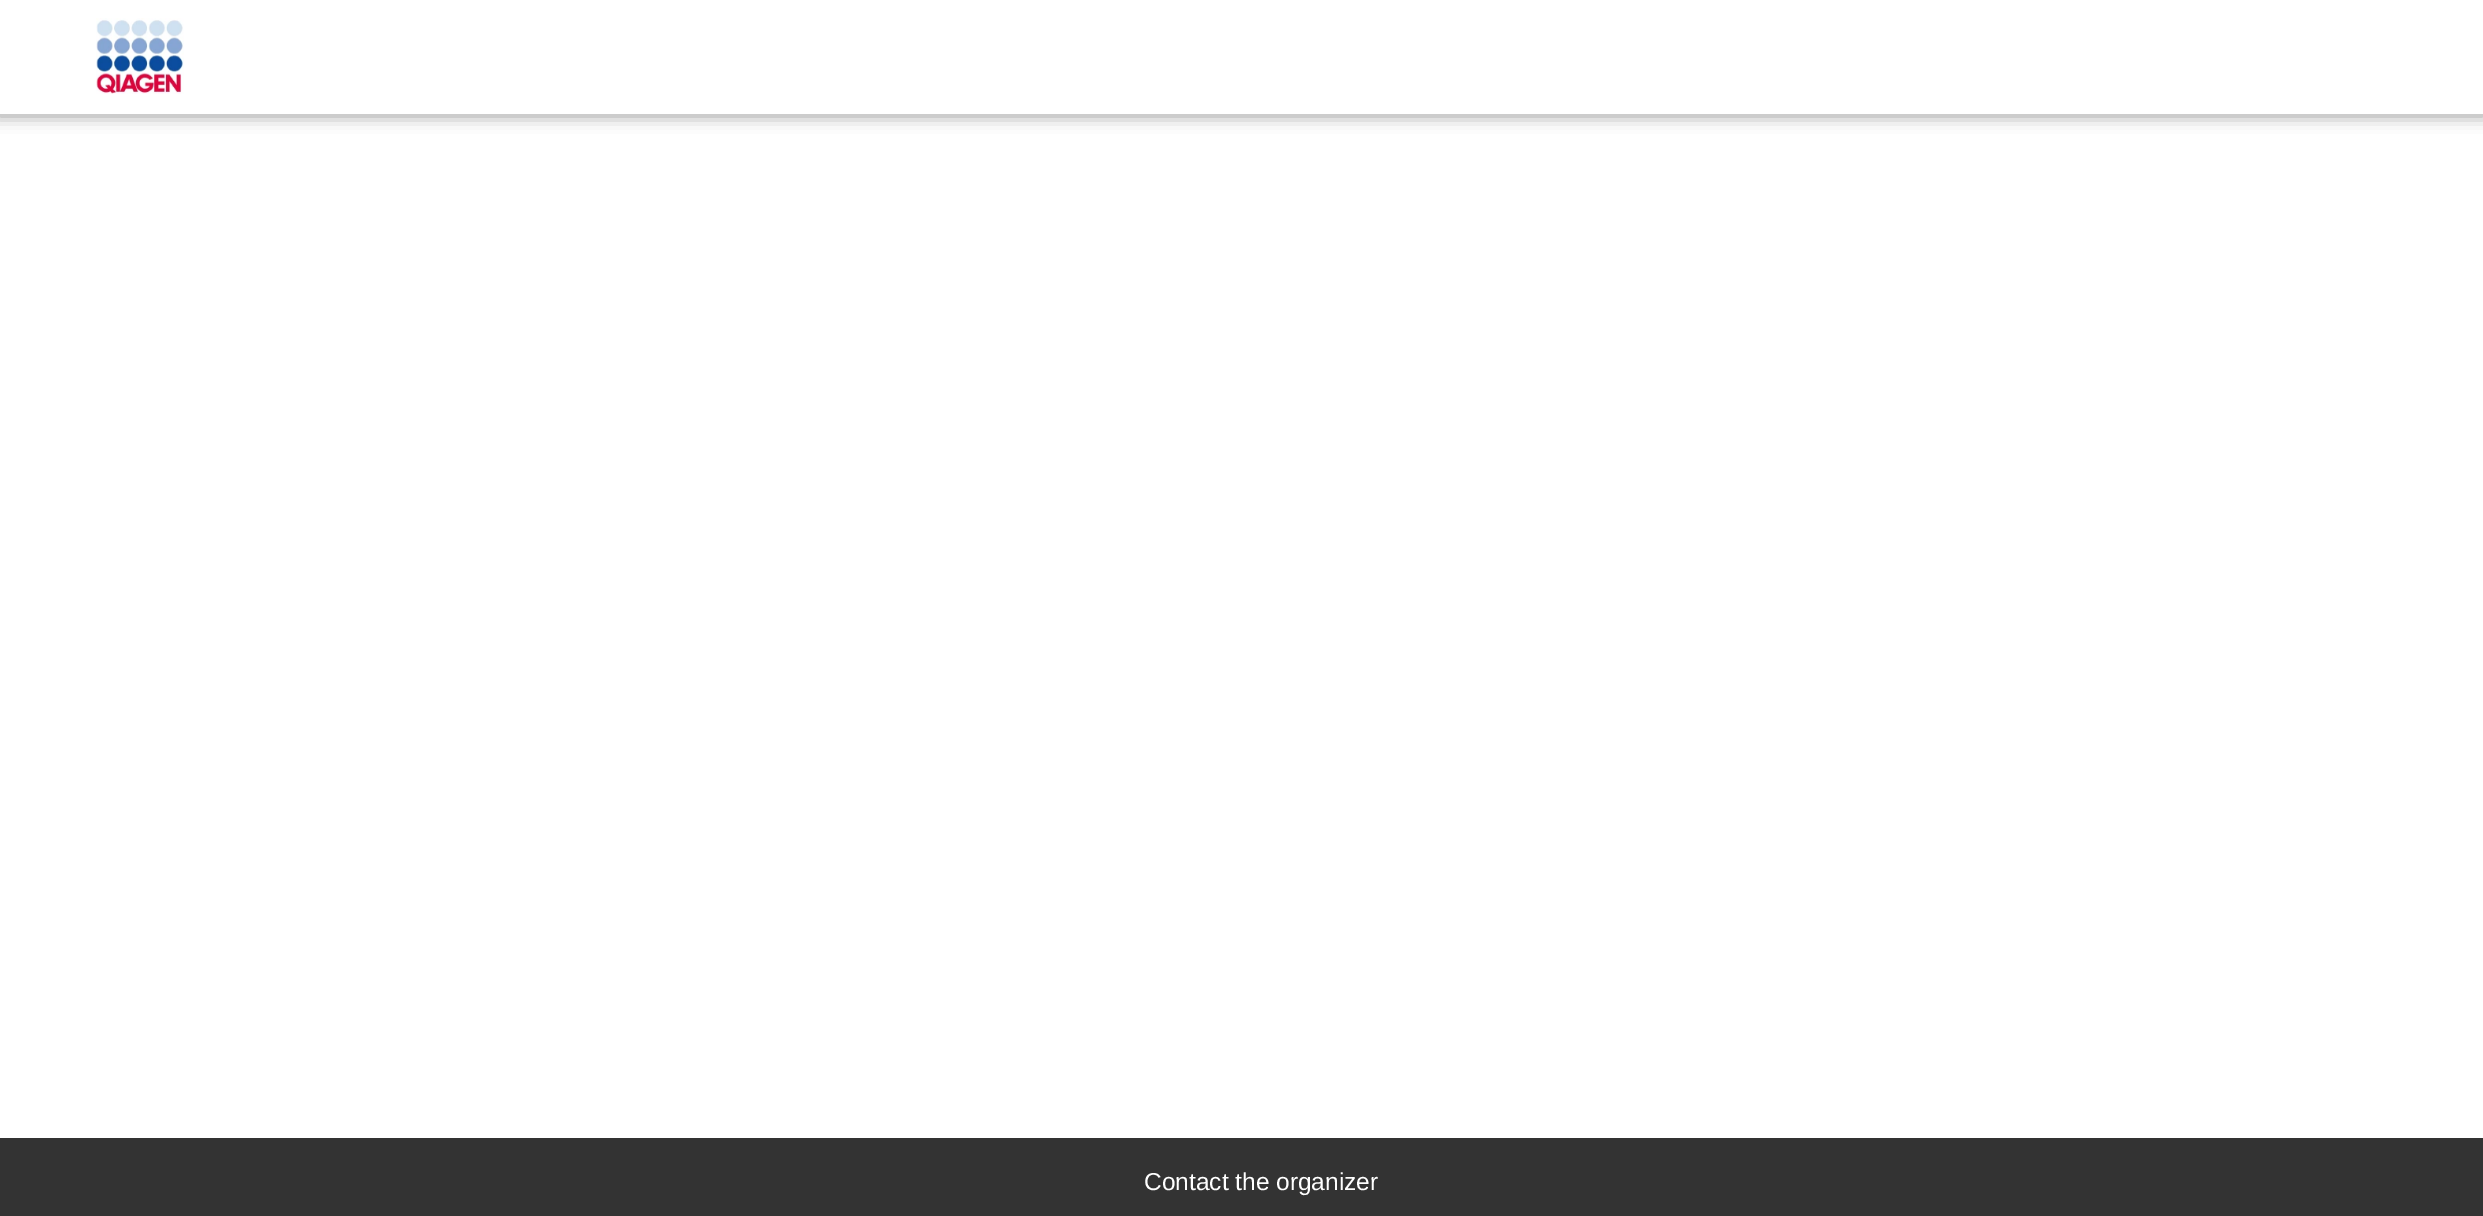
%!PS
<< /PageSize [2483 1216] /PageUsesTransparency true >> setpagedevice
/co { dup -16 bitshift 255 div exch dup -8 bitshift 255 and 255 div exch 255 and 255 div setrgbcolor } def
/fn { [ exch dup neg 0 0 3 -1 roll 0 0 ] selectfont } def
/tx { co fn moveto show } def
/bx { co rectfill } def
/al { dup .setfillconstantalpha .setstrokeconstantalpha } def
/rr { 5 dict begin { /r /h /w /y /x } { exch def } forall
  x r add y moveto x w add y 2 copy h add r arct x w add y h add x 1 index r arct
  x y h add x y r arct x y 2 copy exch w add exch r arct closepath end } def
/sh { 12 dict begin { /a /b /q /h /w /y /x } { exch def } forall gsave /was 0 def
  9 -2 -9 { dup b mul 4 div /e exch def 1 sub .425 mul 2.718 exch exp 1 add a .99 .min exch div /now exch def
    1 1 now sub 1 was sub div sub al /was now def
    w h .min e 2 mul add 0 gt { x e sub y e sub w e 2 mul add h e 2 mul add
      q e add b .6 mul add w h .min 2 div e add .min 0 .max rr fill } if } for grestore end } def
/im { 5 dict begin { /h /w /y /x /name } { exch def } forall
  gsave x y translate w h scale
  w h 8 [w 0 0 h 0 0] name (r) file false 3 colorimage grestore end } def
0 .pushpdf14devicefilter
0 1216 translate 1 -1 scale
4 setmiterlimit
0 0 2483 1216 16#FFFFFF bx
16#000000 co
-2 -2 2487 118 0 8 .4 sh
0 0 2483 114 16#FFFFFF bx
(media/1.raw) 96 18 88 76 im
0 1138 2483 78 16#333333 bx
(Contact the organizer) 1144 1190 /LiberationSans-Regular 24.5 16#FFFFFF tx
.poppdf14devicefilter showpage
